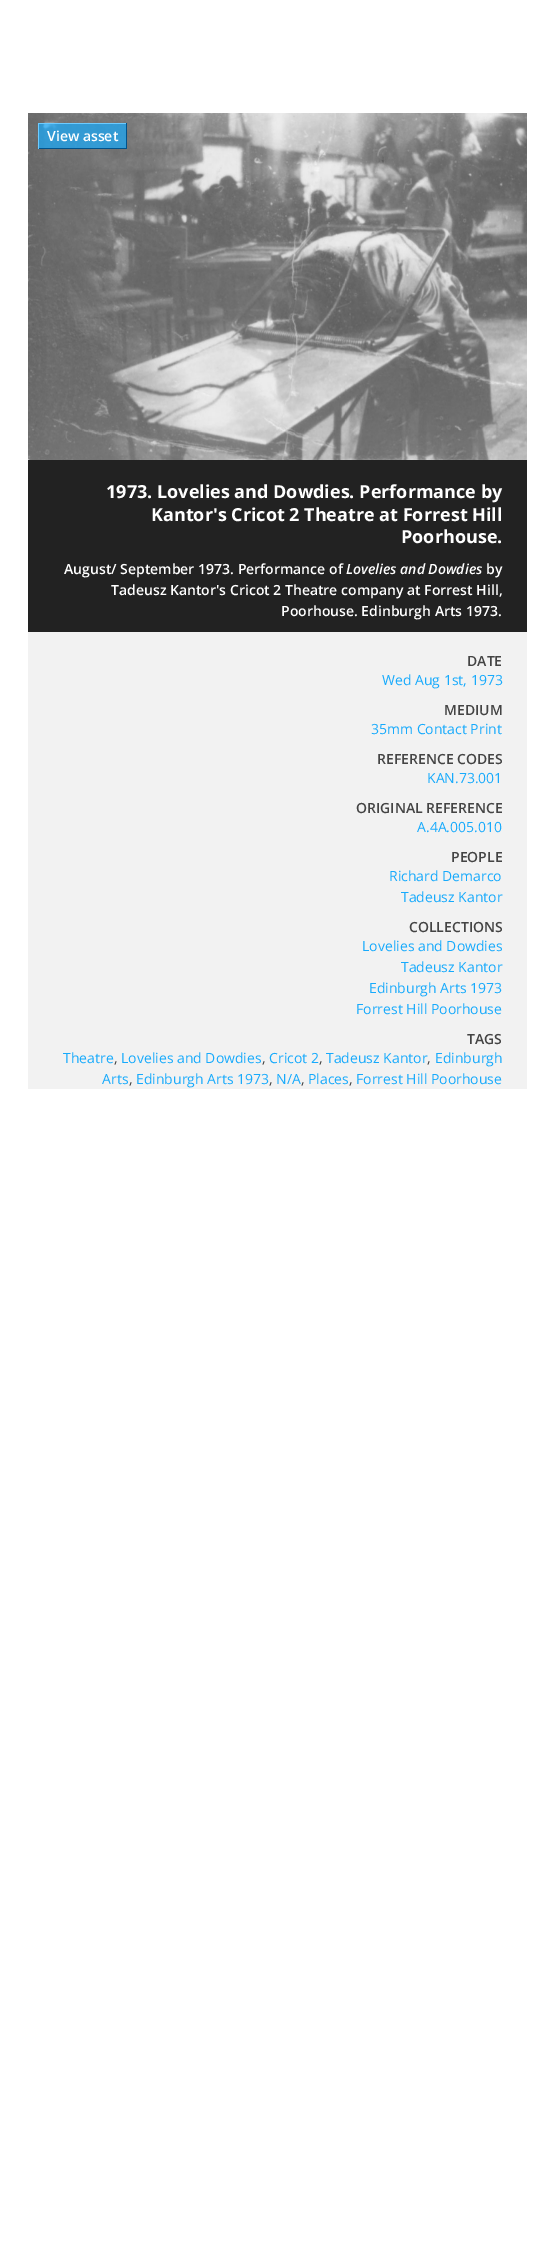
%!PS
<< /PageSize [555 2258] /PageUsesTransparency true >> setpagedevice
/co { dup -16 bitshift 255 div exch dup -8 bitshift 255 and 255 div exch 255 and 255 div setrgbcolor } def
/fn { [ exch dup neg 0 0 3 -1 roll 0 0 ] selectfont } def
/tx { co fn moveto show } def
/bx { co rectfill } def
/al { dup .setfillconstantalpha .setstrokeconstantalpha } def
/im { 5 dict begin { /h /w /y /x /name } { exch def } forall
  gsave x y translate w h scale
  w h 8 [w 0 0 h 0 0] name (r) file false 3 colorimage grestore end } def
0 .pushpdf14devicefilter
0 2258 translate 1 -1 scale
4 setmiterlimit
0 0 555 2258 16#FFFFFF bx
(media/1.raw) 28 113 499 347 im
0.7 al
39 124 87 24 16#17AAFC bx
1 al
38 123 89 1 16#6DCBFF bx
126 123 1 26 16#00528B bx
38 148 89 1 16#00528B bx
38 123 1 26 16#6DCBFF bx
28 632 499 457 16#F2F2F2 bx
28 460 499 172 16#222222 bx
(View asset) 47 141 /OpenSans-SemiBold 14 16#FFFFFF tx
(1973. Lovelies and Dowdies. Performance by) 106 498 /OpenSans-Bold 18 16#FFFFFF tx
(Kantor's Cricot 2 Theatre at Forrest Hill) 151 521 /OpenSans-Bold 18 16#FFFFFF tx
(Poorhouse.) 401 543 /OpenSans-Bold 18 16#FFFFFF tx
(August/ September 1973. Performance of) 64 574 /OpenSans-SemiBold 14 16#FFFFFF tx
(Lovelies and Dowdies) 346 574 /OpenSans-SemiBoldItalic 14 16#FFFFFF tx
(by) 486 574 /OpenSans-SemiBold 14 16#FFFFFF tx
(Tadeusz Kantor's Cricot 2 Theatre company at Forrest Hill,) 111 595 /OpenSans-SemiBold 14 16#FFFFFF tx
(Poorhouse. Edinburgh Arts 1973.) 281 616 /OpenSans-SemiBold 14 16#FFFFFF tx
(DATE) 467 666 /OpenSans-SemiBold 14 16#444444 tx
(Wed Aug 1st, 1973) 382 685 /OpenSans-Regular 14 16#17AAFC tx
(MEDIUM) 444 715 /OpenSans-SemiBold 14 16#444444 tx
(35mm Contact Print) 371 734 /OpenSans-Regular 14 16#17AAFC tx
(REFERENCE CODES) 377 764 /OpenSans-SemiBold 14 16#444444 tx
(KAN.73.001) 427 783 /OpenSans-Regular 14 16#17AAFC tx
(ORIGINAL REFERENCE) 356 813 /OpenSans-SemiBold 14 16#444444 tx
(A.4A.005.010) 417 832 /OpenSans-Regular 14 16#17AAFC tx
(PEOPLE) 451 862 /OpenSans-SemiBold 14 16#444444 tx
(Richard Demarco) 389 881 /OpenSans-Regular 14 16#17AAFC tx
(Tadeusz Kantor) 401 902 /OpenSans-Regular 14 16#17AAFC tx
(COLLECTIONS) 409 932 /OpenSans-SemiBold 14 16#444444 tx
(Lovelies and Dowdies) 362 951 /OpenSans-Regular 14 16#17AAFC tx
(Tadeusz Kantor) 401 972 /OpenSans-Regular 14 16#17AAFC tx
(Edinburgh Arts 1973) 369 993 /OpenSans-Regular 14 16#17AAFC tx
(Forrest Hill Poorhouse) 356 1014 /OpenSans-Regular 14 16#17AAFC tx
(TAGS) 467 1044 /OpenSans-SemiBold 14 16#444444 tx
(Theatre) 63 1063 /OpenSans-Regular 14 16#17AAFC tx
(,) 114 1063 /OpenSans-Regular 14 16#444444 tx
(Lovelies and Dowdies) 121 1063 /OpenSans-Regular 14 16#17AAFC tx
(,) 262 1063 /OpenSans-Regular 14 16#444444 tx
(Cricot 2) 269 1063 /OpenSans-Regular 14 16#17AAFC tx
(,) 319 1063 /OpenSans-Regular 14 16#444444 tx
(Tadeusz Kantor) 326 1063 /OpenSans-Regular 14 16#17AAFC tx
(,) 427 1063 /OpenSans-Regular 14 16#444444 tx
(Edinburgh) 435 1063 /OpenSans-Regular 14 16#17AAFC tx
(Arts) 102 1084 /OpenSans-Regular 14 16#17AAFC tx
(,) 129 1084 /OpenSans-Regular 14 16#444444 tx
(Edinburgh Arts 1973) 136 1084 /OpenSans-Regular 14 16#17AAFC tx
(,) 269 1084 /OpenSans-Regular 14 16#444444 tx
(N/A) 276 1084 /OpenSans-Regular 14 16#17AAFC tx
(,) 301 1084 /OpenSans-Regular 14 16#444444 tx
(Places) 308 1084 /OpenSans-Regular 14 16#17AAFC tx
(,) 349 1084 /OpenSans-Regular 14 16#444444 tx
(Forrest Hill Poorhouse) 356 1084 /OpenSans-Regular 14 16#17AAFC tx
.poppdf14devicefilter showpage
